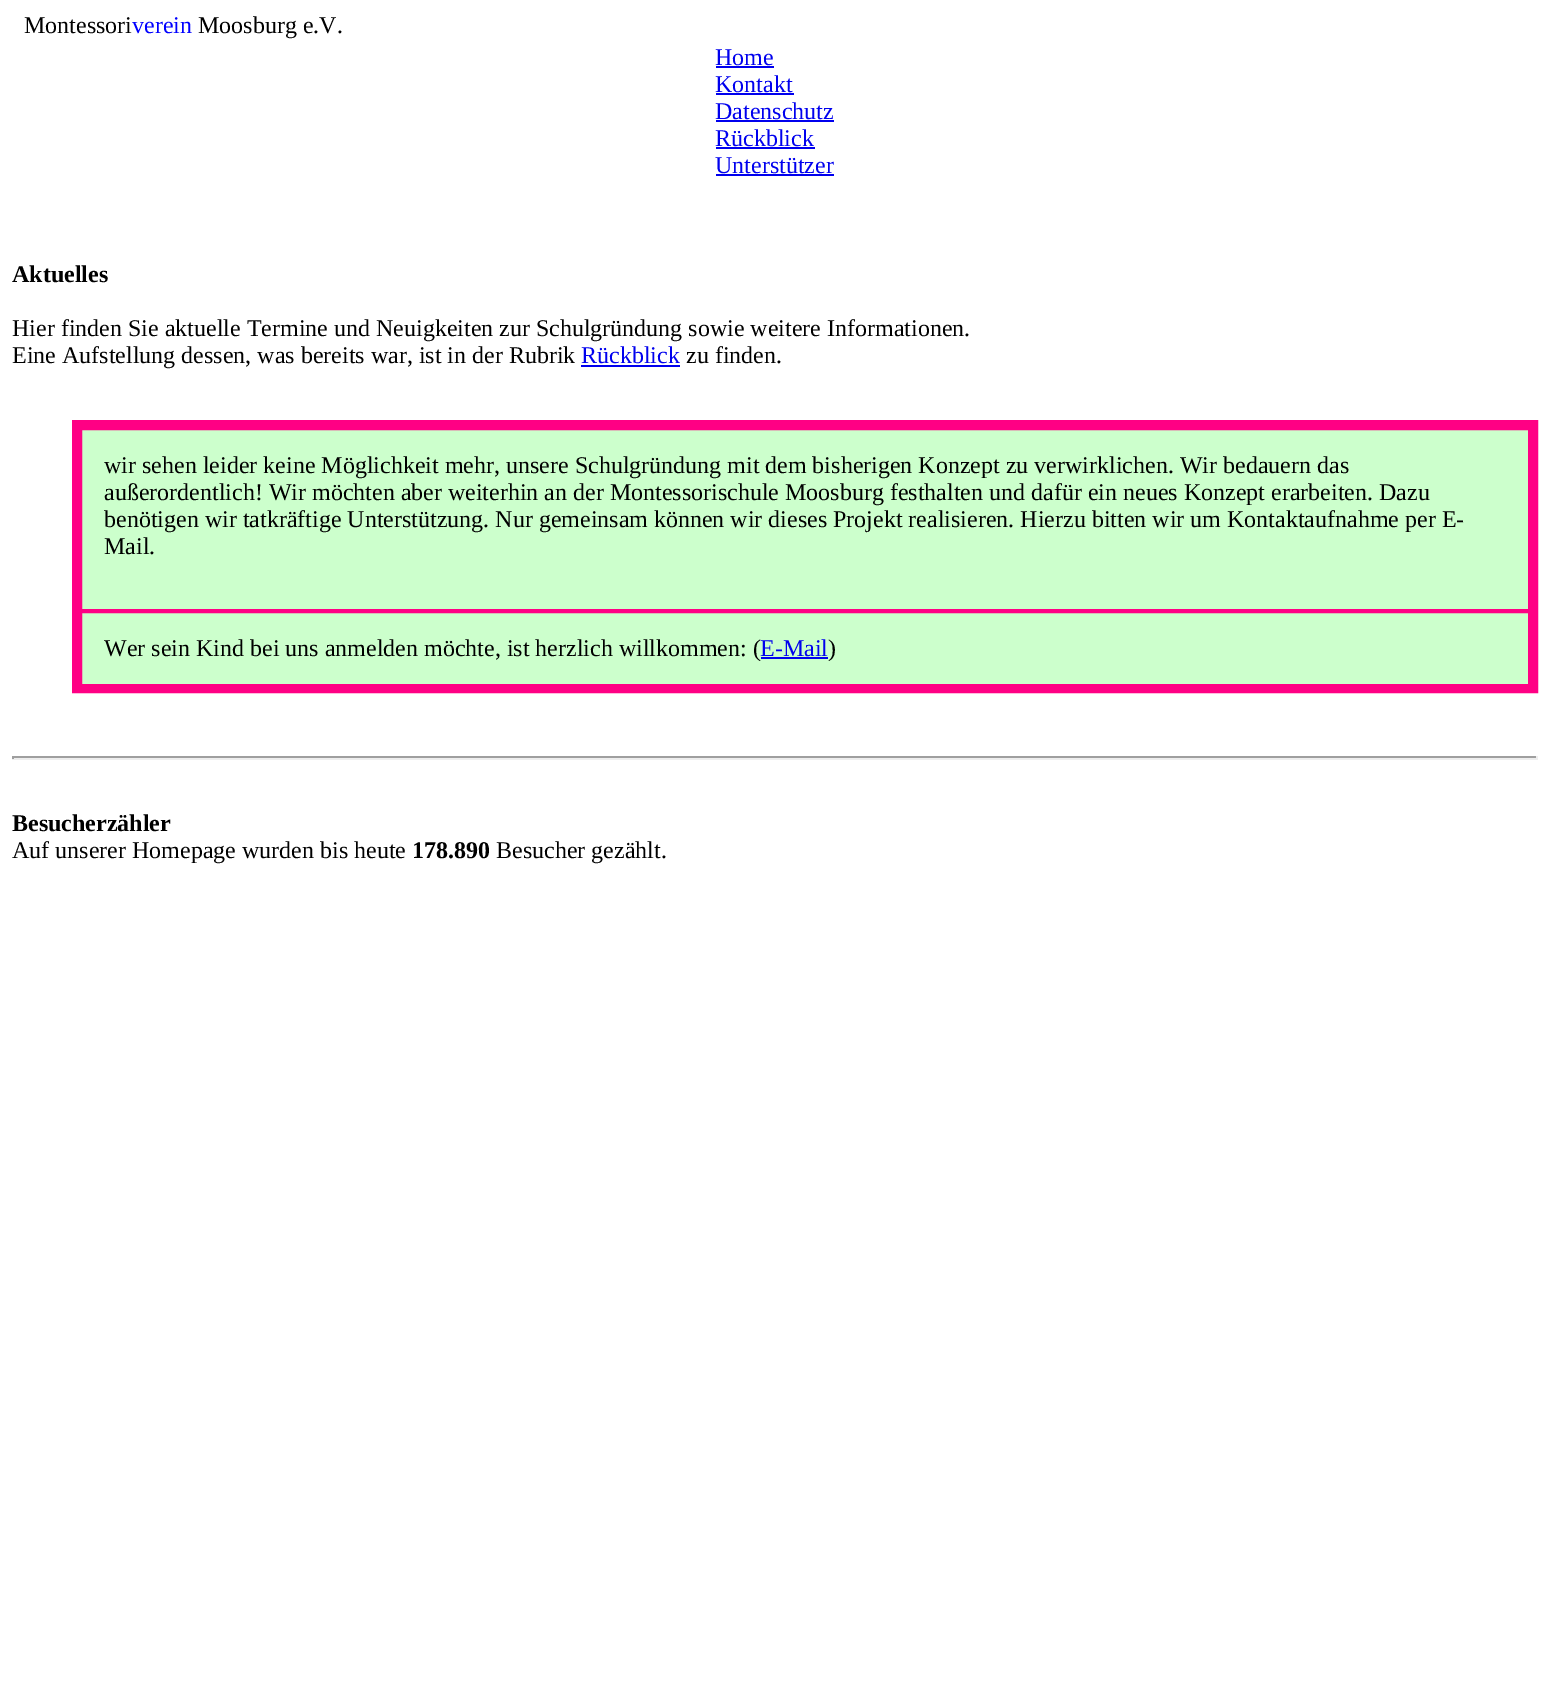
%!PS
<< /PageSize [1549 1684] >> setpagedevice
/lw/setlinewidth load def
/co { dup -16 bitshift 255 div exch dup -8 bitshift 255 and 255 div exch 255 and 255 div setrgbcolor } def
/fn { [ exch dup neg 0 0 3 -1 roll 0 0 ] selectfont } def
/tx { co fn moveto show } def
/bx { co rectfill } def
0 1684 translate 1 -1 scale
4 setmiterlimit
0 0 1549 1684 16#FFFFFF bx
716 66 58 2 16#0000EE bx
716 93 78 2 16#0000EE bx
716 120 118 2 16#0000EE bx
716 147 99 2 16#0000EE bx
716 174 118 2 16#0000EE bx
581 365 99 2 16#0000EE bx
82 430 1446 254 16#CCFFCC bx
16#FF0084 co
8 lw
76 424 1458 265 rectstroke
2 lw
81 429 1448 181 rectstroke
81 612 1448 73 rectstroke
761 657 67 2 16#0000EE bx
12 756 1526 2 16#9F9F9F bx
1536 756 2 3 16#EEEEEE bx
12 758 1526 2 16#EEEEEE bx
12 756 2 3 16#9F9F9F bx
(Montessori) 24 33 /LiberationSerif-Regular 24 16#000000 tx
(verein) 132 33 /LiberationSerif-Regular 24 16#0000FF tx
(Moosburg e.V.) 198 33 /LiberationSerif-Regular 24 16#000000 tx
(Home) 715 65 /LiberationSerif-Regular 24 16#0000EE tx
(Kontakt) 715 92 /LiberationSerif-Regular 24 16#0000EE tx
(Datenschutz) 715 119 /LiberationSerif-Regular 24 16#0000EE tx
(Rückblick) 715 146 /LiberationSerif-Regular 24 16#0000EE tx
(Unterstützer) 715 173 /LiberationSerif-Regular 24 16#0000EE tx
(Aktuelles) 12 282 /LiberationSerif-Bold 24 16#000000 tx
(Hier finden Sie aktuelle Termine und Neuigkeiten zur Schulgründung sowie weitere Informationen.) 12 336 /LiberationSerif-Regular 24 16#000000 tx
(Eine Aufstellung dessen, was bereits war, ist in der Rubrik) 12 363 /LiberationSerif-Regular 24 16#000000 tx
(Rückblick) 581 363 /LiberationSerif-Regular 24 16#0000EE tx
(zu finden.) 686 363 /LiberationSerif-Regular 24 16#000000 tx
(wir sehen leider keine Möglichkeit mehr, unsere Schulgründung mit dem bisherigen Konzept zu verwirklichen. Wir bedauern das) 104 473 /LiberationSerif-Regular 24 16#000000 tx
(außerordentlich! Wir möchten aber weiterhin an der Montessorischule Moosburg festhalten und dafür ein neues Konzept erarbeiten. Dazu) 104 500 /LiberationSerif-Regular 24 16#000000 tx
(benötigen wir tatkräftige Unterstützung. Nur gemeinsam können wir dieses Projekt realisieren. Hierzu bitten wir um Kontaktaufnahme per E-) 104 527 /LiberationSerif-Regular 24 16#000000 tx
(Mail.) 104 554 /LiberationSerif-Regular 24 16#000000 tx
(Wer sein Kind bei uns anmelden möchte, ist herzlich willkommen: \() 104 656 /LiberationSerif-Regular 24 16#000000 tx
(E-Mail) 760 656 /LiberationSerif-Regular 24 16#0000EE tx
(\)) 828 656 /LiberationSerif-Regular 24 16#000000 tx
(Besucherzähler) 12 831 /LiberationSerif-Bold 24 16#000000 tx
(Auf unserer Homepage wurden bis heute) 12 858 /LiberationSerif-Regular 24 16#000000 tx
(178.890) 412 858 /LiberationSerif-Bold 24 16#000000 tx
(Besucher gezählt.) 496 858 /LiberationSerif-Regular 24 16#000000 tx
showpage
